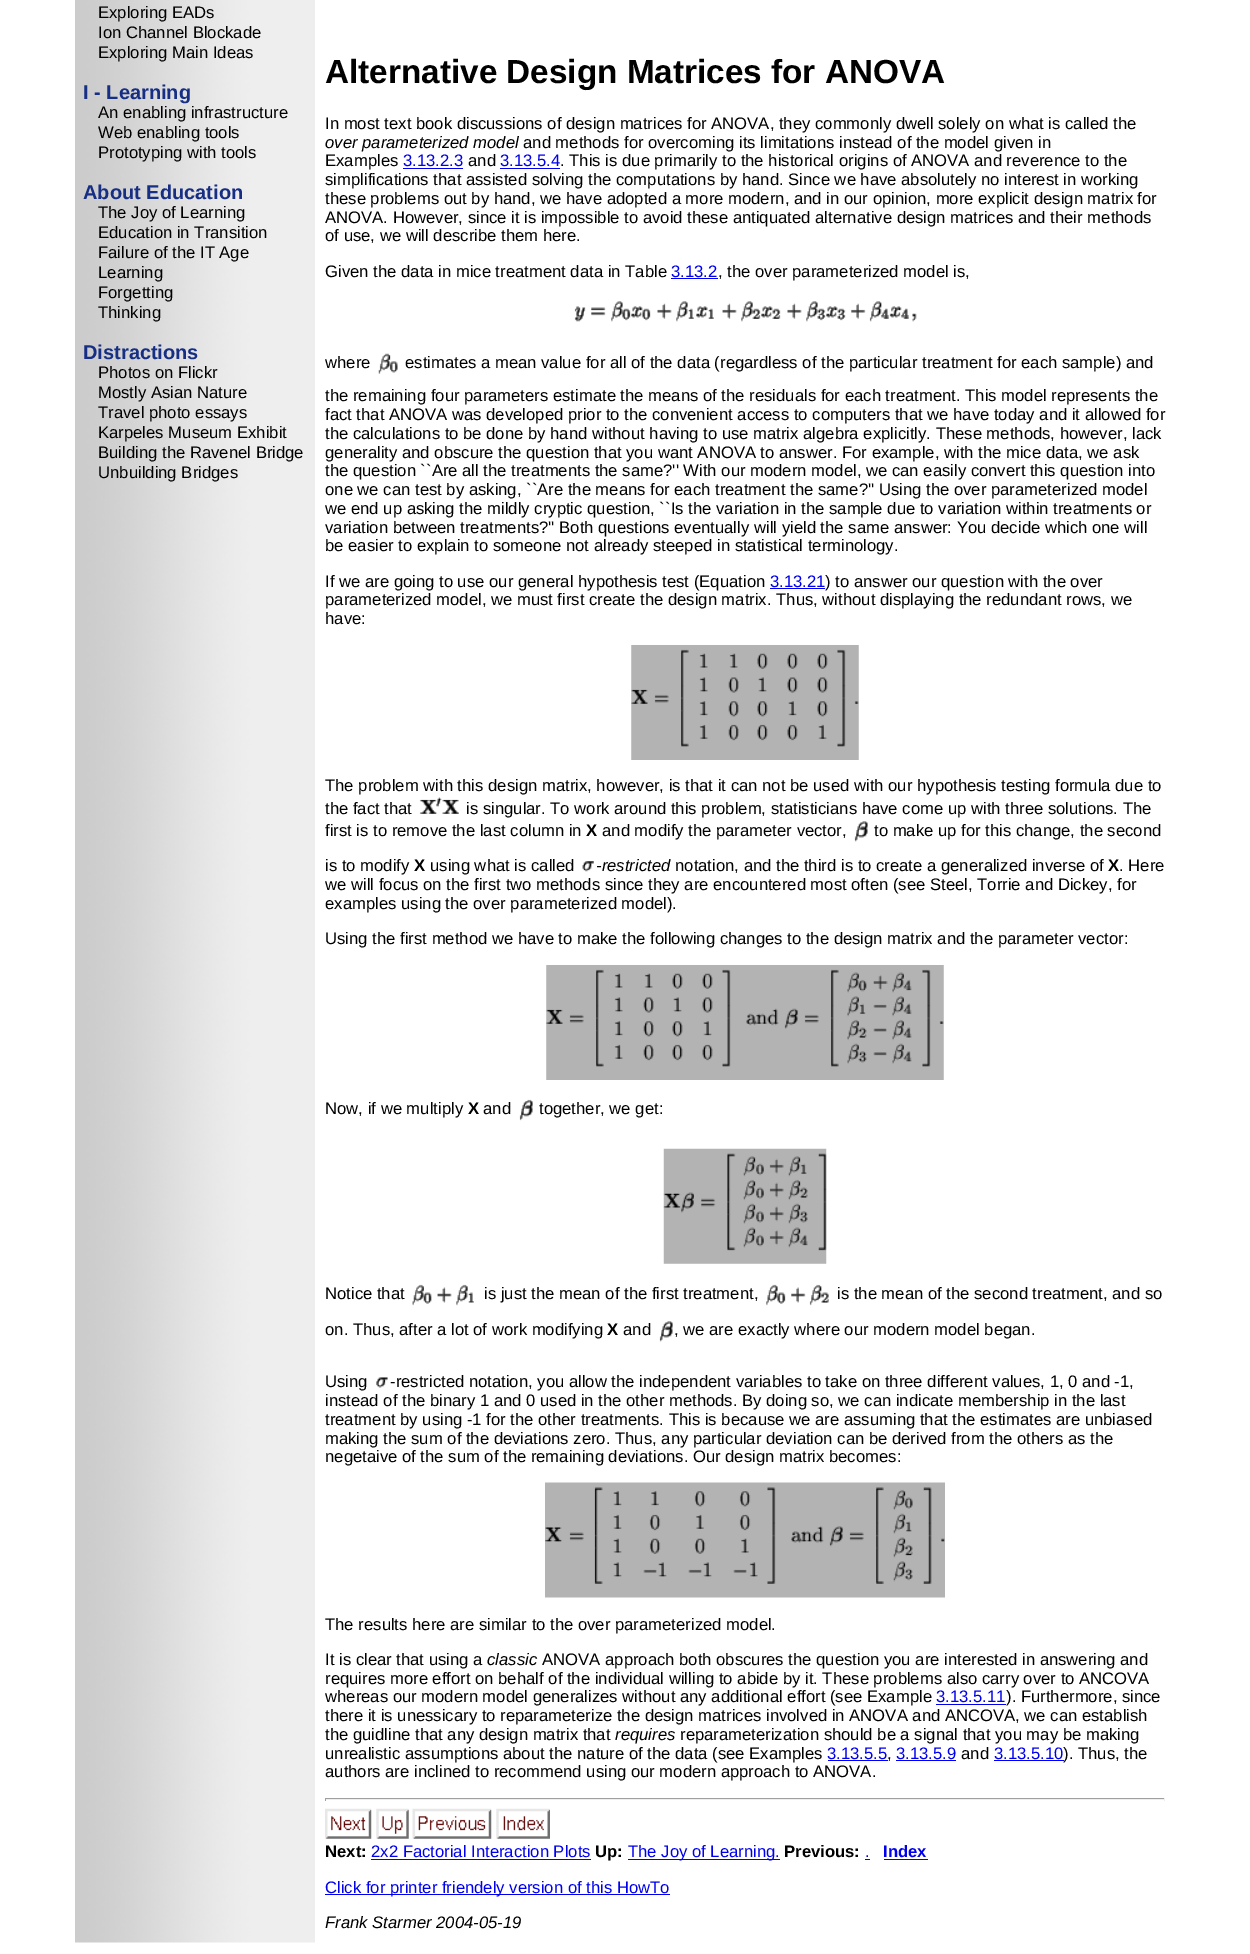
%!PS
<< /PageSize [1250 1954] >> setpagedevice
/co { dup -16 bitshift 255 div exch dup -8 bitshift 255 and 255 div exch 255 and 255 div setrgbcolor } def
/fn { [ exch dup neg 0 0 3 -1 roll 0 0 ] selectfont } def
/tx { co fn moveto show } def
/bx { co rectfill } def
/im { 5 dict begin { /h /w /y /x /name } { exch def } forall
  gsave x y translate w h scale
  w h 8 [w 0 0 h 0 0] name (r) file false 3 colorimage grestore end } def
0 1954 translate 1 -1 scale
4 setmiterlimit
0 0 1250 1954 16#FFFFFF bx
(media/1.raw) 75 0 240 1943 im
403 168 60 1 16#0000EE bx
500 168 60 1 16#0000EE bx
671 278 47 1 16#0000EE bx
(media/2.raw) 574 301 343 21 im
(media/3.raw) 378 353 20 21 im
770 588 55 1 16#0000EE bx
(media/4.raw) 631 645 228 115 im
(media/5.raw) 419 797 40 17 im
(media/6.raw) 854 821 14 21 im
(media/7.raw) 582 861 12 11 im
(media/8.raw) 546 965 398 115 im
(media/9.raw) 519 1099 14 22 im
(media/10.raw) 663 1148 164 116 im
(media/11.raw) 412 1284 62 22 im
(media/12.raw) 766 1284 63 22 im
(media/6.raw) 659 1321 14 21 im
(media/13.raw) 376 1377 12 11 im
(media/14.raw) 545 1482 400 116 im
936 1704 70 1 16#0000EE bx
828 1760 60 1 16#0000EE bx
896 1760 60 1 16#0000EE bx
994 1760 70 1 16#0000EE bx
325 1798 840 1 16#9F9F9F bx
1164 1798 1 3 16#EEEEEE bx
325 1799 840 1 16#EEEEEE bx
325 1798 1 3 16#9F9F9F bx
(media/15.raw) 325 1808 47 31 im
(media/16.raw) 376 1808 33 31 im
(media/17.raw) 412 1808 80 31 im
(media/18.raw) 496 1808 54 31 im
371 1859 220 1 16#0000EE bx
628 1859 152 1 16#0000EE bx
865 1859 5 1 16#0000EE bx
884 1859 44 1 16#0000EE bx
325 1894 345 1 16#0000EE bx
(Exploring EADs) 98 18 /LiberationSans-Regular 16.67 16#000000 tx
(Ion Channel Blockade) 98 38 /LiberationSans-Regular 16.67 16#000000 tx
(Exploring Main Ideas) 98 58 /LiberationSans-Regular 16.67 16#000000 tx
(I - Learning) 83 99 /LiberationSans-Bold 20 16#162E84 tx
(An enabling infrastructure) 98 118 /LiberationSans-Regular 16.67 16#000000 tx
(Web enabling tools) 98 138 /LiberationSans-Regular 16.67 16#000000 tx
(Prototyping with tools) 98 158 /LiberationSans-Regular 16.67 16#000000 tx
(About Education) 83 199 /LiberationSans-Bold 20 16#162E84 tx
(The Joy of Learning) 98 218 /LiberationSans-Regular 16.67 16#000000 tx
(Education in Transition) 98 238 /LiberationSans-Regular 16.67 16#000000 tx
(Failure of the IT Age) 98 258 /LiberationSans-Regular 16.67 16#000000 tx
(Learning) 98 278 /LiberationSans-Regular 16.67 16#000000 tx
(Forgetting) 98 298 /LiberationSans-Regular 16.67 16#000000 tx
(Thinking) 98 318 /LiberationSans-Regular 16.67 16#000000 tx
(Distractions) 83 359 /LiberationSans-Bold 20 16#162E84 tx
(Photos on Flickr) 98 378 /LiberationSans-Regular 16.67 16#000000 tx
(Mostly Asian Nature) 98 398 /LiberationSans-Regular 16.67 16#000000 tx
(Travel photo essays) 98 418 /LiberationSans-Regular 16.67 16#000000 tx
(Karpeles Museum Exhibit) 98 438 /LiberationSans-Regular 16.67 16#000000 tx
(Building the Ravenel Bridge) 98 458 /LiberationSans-Regular 16.67 16#000000 tx
(Unbuilding Bridges) 98 478 /LiberationSans-Regular 16.67 16#000000 tx
(Alternative Design Matrices for ANOVA) 325 83 /LiberationSans-Bold 33.3 16#000000 tx
(In most text book discussions of design matrices for ANOVA, they commonly dwell solely on what is called the) 325 129 /LiberationSans-Regular 16.67 16#000000 tx
(over parameterized model) 325 148 /LiberationSans-Italic 16.67 16#000000 tx
(and methods for overcoming its limitations instead of the model given in) 523 148 /LiberationSans-Regular 16.67 16#000000 tx
(Examples) 325 166 /LiberationSans-Regular 16.67 16#000000 tx
(3.13.2.3) 403 166 /LiberationSans-Regular 16.67 16#0000EE tx
(and) 468 166 /LiberationSans-Regular 16.67 16#000000 tx
(3.13.5.4) 500 166 /LiberationSans-Regular 16.67 16#0000EE tx
(. This is due primarily to the historical origins of ANOVA and reverence to the) 560 166 /LiberationSans-Regular 16.67 16#000000 tx
(simplifications that assisted solving the computations by hand. Since we have absolutely no interest in working) 325 185 /LiberationSans-Regular 16.67 16#000000 tx
(these problems out by hand, we have adopted a more modern, and in our opinion, more explicit design matrix for) 325 204 /LiberationSans-Regular 16.67 16#000000 tx
(ANOVA. However, since it is impossible to avoid these antiquated alternative design matrices and their methods) 325 223 /LiberationSans-Regular 16.67 16#000000 tx
(of use, we will describe them here.) 325 241 /LiberationSans-Regular 16.67 16#000000 tx
(Given the data in mice treatment data in Table) 325 277 /LiberationSans-Regular 16.67 16#000000 tx
(3.13.2) 671 277 /LiberationSans-Regular 16.67 16#0000EE tx
(, the over parameterized model is,) 718 277 /LiberationSans-Regular 16.67 16#000000 tx
(where) 325 368 /LiberationSans-Regular 16.67 16#000000 tx
(estimates a mean value for all of the data \(regardless of the particular treatment for each sample\) and) 405 368 /LiberationSans-Regular 16.67 16#000000 tx
(the remaining four parameters estimate the means of the residuals for each treatment. This model represents the) 325 401 /LiberationSans-Regular 16.67 16#000000 tx
(fact that ANOVA was developed prior to the convenient access to computers that we have today and it allowed for) 325 420 /LiberationSans-Regular 16.67 16#000000 tx
(the calculations to be done by hand without having to use matrix algebra explicitly. These methods, however, lack) 325 439 /LiberationSans-Regular 16.67 16#000000 tx
(generality and obscure the question that you want ANOVA to answer. For example, with the mice data, we ask) 325 458 /LiberationSans-Regular 16.67 16#000000 tx
(the question ``Are all the treatments the same?'' With our modern model, we can easily convert this question into) 325 476 /LiberationSans-Regular 16.67 16#000000 tx
(one we can test by asking, ``Are the means for each treatment the same?'' Using the over parameterized model) 325 495 /LiberationSans-Regular 16.67 16#000000 tx
(we end up asking the mildly cryptic question, ``Is the variation in the sample due to variation within treatments or) 325 514 /LiberationSans-Regular 16.67 16#000000 tx
(variation between treatments?'' Both questions eventually will yield the same answer: You decide which one will) 325 533 /LiberationSans-Regular 16.67 16#000000 tx
(be easier to explain to someone not already steeped in statistical terminology.) 325 551 /LiberationSans-Regular 16.67 16#000000 tx
(If we are going to use our general hypothesis test \(Equation) 325 587 /LiberationSans-Regular 16.67 16#000000 tx
(3.13.21) 770 587 /LiberationSans-Regular 16.67 16#0000EE tx
(\) to answer our question with the over) 825 587 /LiberationSans-Regular 16.67 16#000000 tx
(parameterized model, we must first create the design matrix. Thus, without displaying the redundant rows, we) 325 605 /LiberationSans-Regular 16.67 16#000000 tx
(have:) 325 624 /LiberationSans-Regular 16.67 16#000000 tx
(The problem with this design matrix, however, is that it can not be used with our hypothesis testing formula due to) 325 791 /LiberationSans-Regular 16.67 16#000000 tx
(the fact that) 325 814 /LiberationSans-Regular 16.67 16#000000 tx
(is singular. To work around this problem, statisticians have come up with three solutions. The) 466 814 /LiberationSans-Regular 16.67 16#000000 tx
(first is to remove the last column in) 325 836 /LiberationSans-Regular 16.67 16#000000 tx
(X) 586 836 /LiberationSans-Bold 16.67 16#000000 tx
(and modify the parameter vector,) 602 836 /LiberationSans-Regular 16.67 16#000000 tx
(to make up for this change, the second) 874 836 /LiberationSans-Regular 16.67 16#000000 tx
(is to modify) 325 871 /LiberationSans-Regular 16.67 16#000000 tx
(X) 414 871 /LiberationSans-Bold 16.67 16#000000 tx
(using what is called) 430 871 /LiberationSans-Regular 16.67 16#000000 tx
(-restricted) 596 871 /LiberationSans-Italic 16.67 16#000000 tx
(notation, and the third is to create a generalized inverse of) 675 871 /LiberationSans-Regular 16.67 16#000000 tx
(X) 1108 871 /LiberationSans-Bold 16.67 16#000000 tx
(. Here) 1119 871 /LiberationSans-Regular 16.67 16#000000 tx
(we will focus on the first two methods since they are encountered most often \(see Steel, Torrie and Dickey, for) 325 890 /LiberationSans-Regular 16.67 16#000000 tx
(examples using the over parameterized model\).) 325 909 /LiberationSans-Regular 16.67 16#000000 tx
(Using the first method we have to make the following changes to the design matrix and the parameter vector:) 325 944 /LiberationSans-Regular 16.67 16#000000 tx
(Now, if we multiply) 325 1114 /LiberationSans-Regular 16.67 16#000000 tx
(X) 468 1114 /LiberationSans-Bold 16.67 16#000000 tx
(and) 483 1114 /LiberationSans-Regular 16.67 16#000000 tx
(together, we get:) 539 1114 /LiberationSans-Regular 16.67 16#000000 tx
(Notice that) 325 1299 /LiberationSans-Regular 16.67 16#000000 tx
(is just the mean of the first treatment,) 484 1299 /LiberationSans-Regular 16.67 16#000000 tx
(is the mean of the second treatment, and so) 837 1299 /LiberationSans-Regular 16.67 16#000000 tx
(on. Thus, after a lot of work modifying) 325 1335 /LiberationSans-Regular 16.67 16#000000 tx
(X) 607 1335 /LiberationSans-Bold 16.67 16#000000 tx
(and) 623 1335 /LiberationSans-Regular 16.67 16#000000 tx
(, we are exactly where our modern model began.) 674 1335 /LiberationSans-Regular 16.67 16#000000 tx
(Using) 325 1387 /LiberationSans-Regular 16.67 16#000000 tx
(-restricted notation, you allow the independent variables to take on three different values, 1, 0 and -1,) 390 1387 /LiberationSans-Regular 16.67 16#000000 tx
(instead of the binary 1 and 0 used in the other methods. By doing so, we can indicate membership in the last) 325 1406 /LiberationSans-Regular 16.67 16#000000 tx
(treatment by using -1 for the other treatments. This is because we are assuming that the estimates are unbiased) 325 1425 /LiberationSans-Regular 16.67 16#000000 tx
(making the sum of the deviations zero. Thus, any particular deviation can be derived from the others as the) 325 1444 /LiberationSans-Regular 16.67 16#000000 tx
(negetaive of the sum of the remaining deviations. Our design matrix becomes:) 325 1462 /LiberationSans-Regular 16.67 16#000000 tx
(The results here are similar to the over parameterized model.) 325 1630 /LiberationSans-Regular 16.67 16#000000 tx
(It is clear that using a) 325 1665 /LiberationSans-Regular 16.67 16#000000 tx
(classic) 487 1665 /LiberationSans-Italic 16.67 16#000000 tx
(ANOVA approach both obscures the question you are interested in answering and) 542 1665 /LiberationSans-Regular 16.67 16#000000 tx
(requires more effort on behalf of the individual willing to abide by it. These problems also carry over to ANCOVA) 325 1684 /LiberationSans-Regular 16.67 16#000000 tx
(whereas our modern model generalizes without any additional effort \(see Example) 325 1702 /LiberationSans-Regular 16.67 16#000000 tx
(3.13.5.11) 936 1702 /LiberationSans-Regular 16.67 16#0000EE tx
(\). Furthermore, since) 1006 1702 /LiberationSans-Regular 16.67 16#000000 tx
(there it is unessicary to reparameterize the design matrices involved in ANOVA and ANCOVA, we can establish) 325 1721 /LiberationSans-Regular 16.67 16#000000 tx
(the guidline that any design matrix that) 325 1740 /LiberationSans-Regular 16.67 16#000000 tx
(requires) 615 1740 /LiberationSans-Italic 16.67 16#000000 tx
(reparameterization should be a signal that you may be making) 680 1740 /LiberationSans-Regular 16.67 16#000000 tx
(unrealistic assumptions about the nature of the data \(see Examples) 325 1759 /LiberationSans-Regular 16.67 16#000000 tx
(3.13.5.5) 827 1759 /LiberationSans-Regular 16.67 16#0000EE tx
(,) 887 1759 /LiberationSans-Regular 16.67 16#000000 tx
(3.13.5.9) 896 1759 /LiberationSans-Regular 16.67 16#0000EE tx
(and) 961 1759 /LiberationSans-Regular 16.67 16#000000 tx
(3.13.5.10) 994 1759 /LiberationSans-Regular 16.67 16#0000EE tx
(\). Thus, the) 1063 1759 /LiberationSans-Regular 16.67 16#000000 tx
(authors are inclined to recommend using our modern approach to ANOVA.) 325 1777 /LiberationSans-Regular 16.67 16#000000 tx
(Next:) 325 1857 /LiberationSans-Bold 16.67 16#000000 tx
(2x2 Factorial Interaction Plots) 371 1857 /LiberationSans-Regular 16.67 16#0000EE tx
(Up:) 595 1857 /LiberationSans-Bold 16.67 16#000000 tx
(The Joy of Learning.) 628 1857 /LiberationSans-Regular 16.67 16#0000EE tx
(Previous:) 784 1857 /LiberationSans-Bold 16.67 16#000000 tx
(.) 865 1857 /LiberationSans-Regular 16.67 16#0000EE tx
(Index) 883 1857 /LiberationSans-Bold 16.67 16#0000EE tx
(Click for printer friendely version of this HowTo) 325 1893 /LiberationSans-Regular 16.67 16#0000EE tx
(Frank Starmer 2004-05-19) 325 1928 /LiberationSans-Italic 16.67 16#000000 tx
showpage
